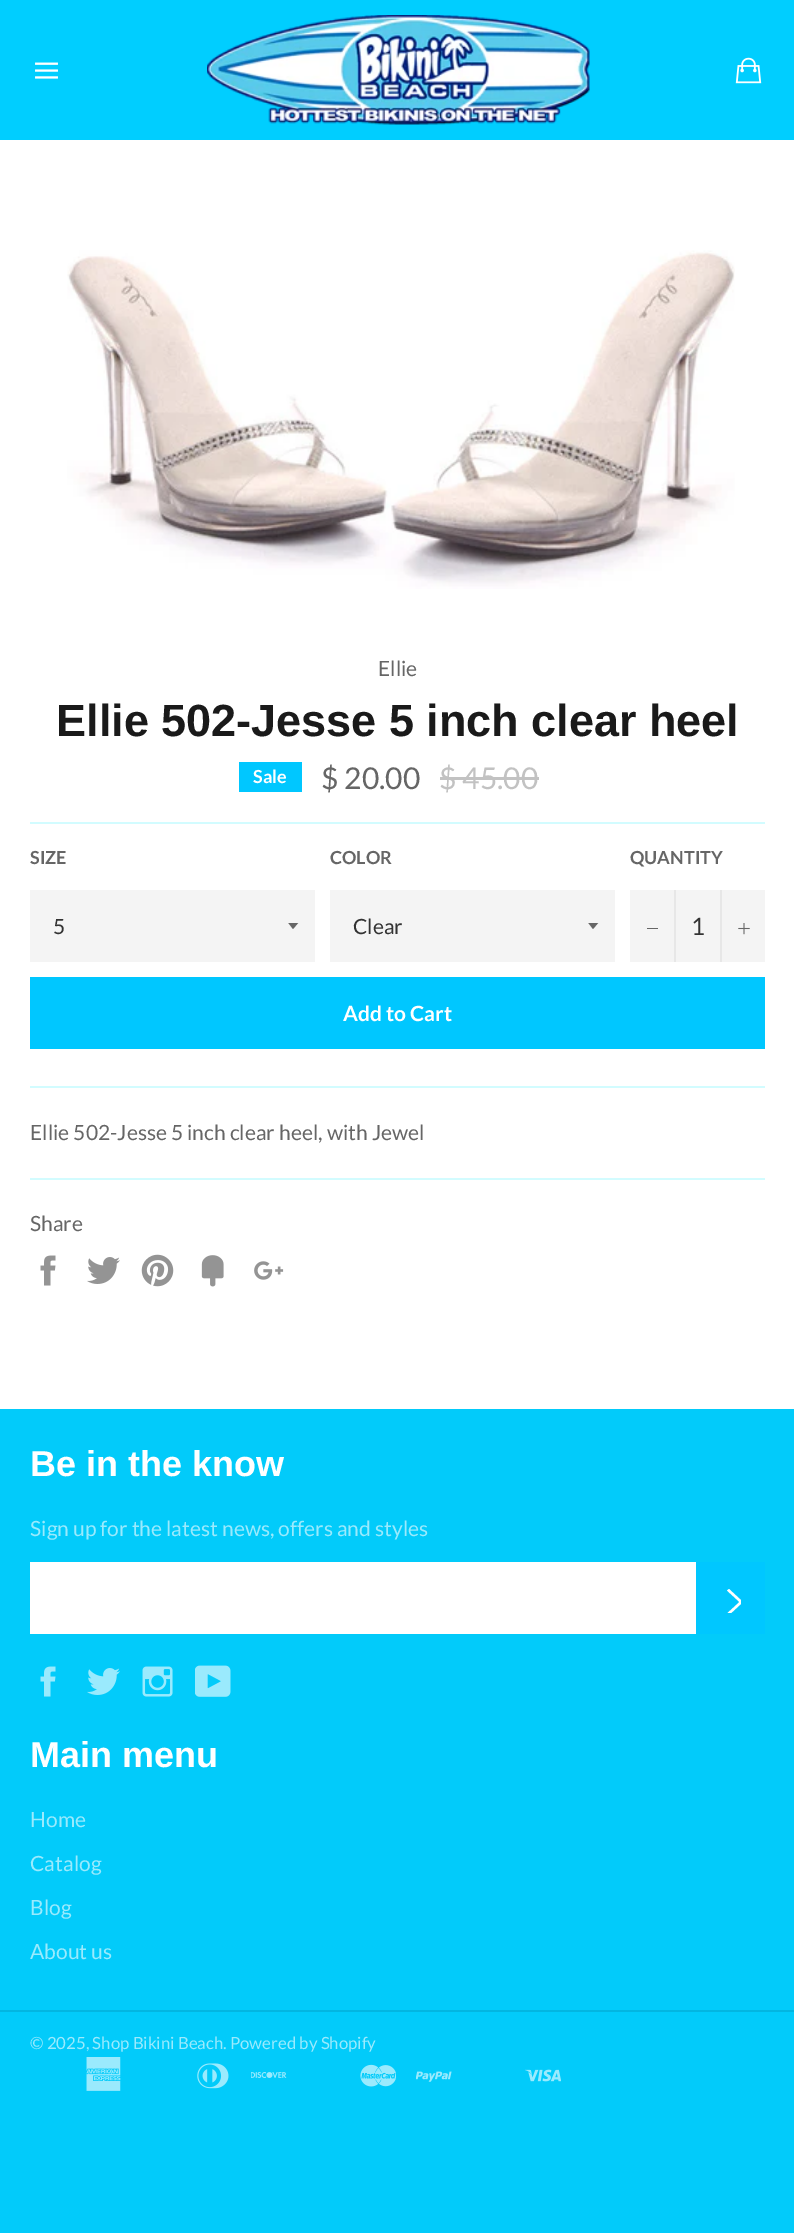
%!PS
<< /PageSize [794 2233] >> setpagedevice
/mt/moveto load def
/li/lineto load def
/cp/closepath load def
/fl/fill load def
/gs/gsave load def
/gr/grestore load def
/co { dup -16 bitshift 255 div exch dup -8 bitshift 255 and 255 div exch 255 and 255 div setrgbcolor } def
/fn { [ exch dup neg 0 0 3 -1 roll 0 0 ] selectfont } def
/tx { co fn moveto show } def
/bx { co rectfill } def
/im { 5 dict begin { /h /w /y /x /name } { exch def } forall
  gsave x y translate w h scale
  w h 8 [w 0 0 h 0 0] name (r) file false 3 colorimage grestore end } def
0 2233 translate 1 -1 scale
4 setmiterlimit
0 0 794 2233 16#02CBFA bx
0 140 794 1269 16#FFFFFF bx
0 0 794 140 16#00CEFF bx
(media/1.raw) 35 62 23 17 im
(media/2.raw) 207 15 383 110 im
(media/3.raw) 735 57 27 27 im
(media/4.raw) 67 250 668 339 im
239 762 63 30 16#00C7FF bx
440 777 99 3 16#C2C2C2 bx
30 822 735 2 16#D2FCFF bx
30 890 285 72 16#F4F4F4 bx
gs
288 923 12 7 rectclip
16#666666 co
288 922.5 mt 293 929 li 298.5 922.5 li cp fl
gr
330 890 285 72 16#F4F4F4 bx
gs
588 923 12 7 rectclip
16#666666 co
588 922.5 mt 593 929 li 598.5 922.5 li cp fl
gr
630 890 135 72 16#F4F4F4 bx
674 890 2 72 16#E7E7E7 bx
647 928 11 1 16#666666 bx
720 890 2 72 16#E7E7E7 bx
(media/5.raw) 738 923 12 12 im
30 977 735 72 16#00C7FF bx
30 1086 735 2 16#D2FCFF bx
30 1178 735 2 16#D2FCFF bx
(media/6.raw) 40 1255 16 31 im
(media/7.raw) 87 1257 33 27 im
(media/8.raw) 141 1254 33 33 im
(media/9.raw) 201 1255 23 32 im
(media/10.raw) 254 1261 30 19 im
30 1562 666 72 16#FFFFFF bx
696 1562 69 72 16#00C7FF bx
gs
720 1587 21 26 rectclip
16#FFFFFF co
727 1590.5 mt 729 1589 li 743 1602 li 729 1615 li 727 1613.5 li 739.5 1602 li cp fl
gr
(media/11.raw) 40 1666 16 31 im
(media/12.raw) 87 1668 33 27 im
(media/13.raw) 142 1666 31 31 im
(media/14.raw) 195 1665 36 32 im
0 2010 794 2 16#02B6E1 bx
(media/15.raw) 86 2057 35 34 im
(media/16.raw) 197 2063 32 26 im
(media/17.raw) 251 2072 36 6 im
(media/18.raw) 360 2064 36 23 im
(media/19.raw) 416 2071 36 11 im
(media/20.raw) 525 2069 36 13 im
(Ellie) 378 676 /Lato-Regular 21 16#666666 tx
(Ellie 502-Jesse 5 inch clear heel) 56 736 /LiberationSans-Bold 45 16#1A1A1A tx
(Sale) 253 783 /Lato-Bold 18 16#FFFFFF tx
($ 20.00) 321 789 /Lato-Regular 30 16#666666 tx
($ 45.00) 439 789 /Lato-Regular 30 16#C2C2C2 tx
(SIZE) 30 864 /Lato-Bold 18 16#666666 tx
(5) 53 934 /Lato-Regular 21 16#333333 tx
(COLOR) 330 864 /Lato-Bold 18 16#666666 tx
(Clear) 353 934 /Lato-Regular 21 16#333333 tx
(QUANTITY) 630 864 /Lato-Bold 18 16#666666 tx
(1) 691 935 /Lato-Regular 24 16#333333 tx
(Add to Cart) 343 1021 /Lato-Bold 21 16#FFFFFF tx
(Ellie 502-Jesse 5 inch clear heel, with Jewel) 30 1140 /Lato-Regular 21 16#666666 tx
(Share) 30 1231 /Lato-Regular 21 16#666666 tx
(Be in the know) 30 1476 /LiberationSans-Bold 36 16#FFFFFF tx
(Sign up for the latest news, offers and styles) 30 1536 /Lato-Regular 21 16#9AEAFD tx
(Main menu) 30 1767 /LiberationSans-Bold 36 16#FFFFFF tx
(Home) 30 1827 /Lato-Regular 21 16#9AEAFD tx
(Catalog) 30 1871 /Lato-Regular 21 16#9AEAFD tx
(Blog) 30 1915 /Lato-Regular 21 16#9AEAFD tx
(About us) 30 1959 /Lato-Regular 21 16#9AEAFD tx
(© 2025, Shop Bikini Beach. Powered by Shopify) 30 2049 /Lato-Regular 16.8 16#9AEAFD tx
showpage
